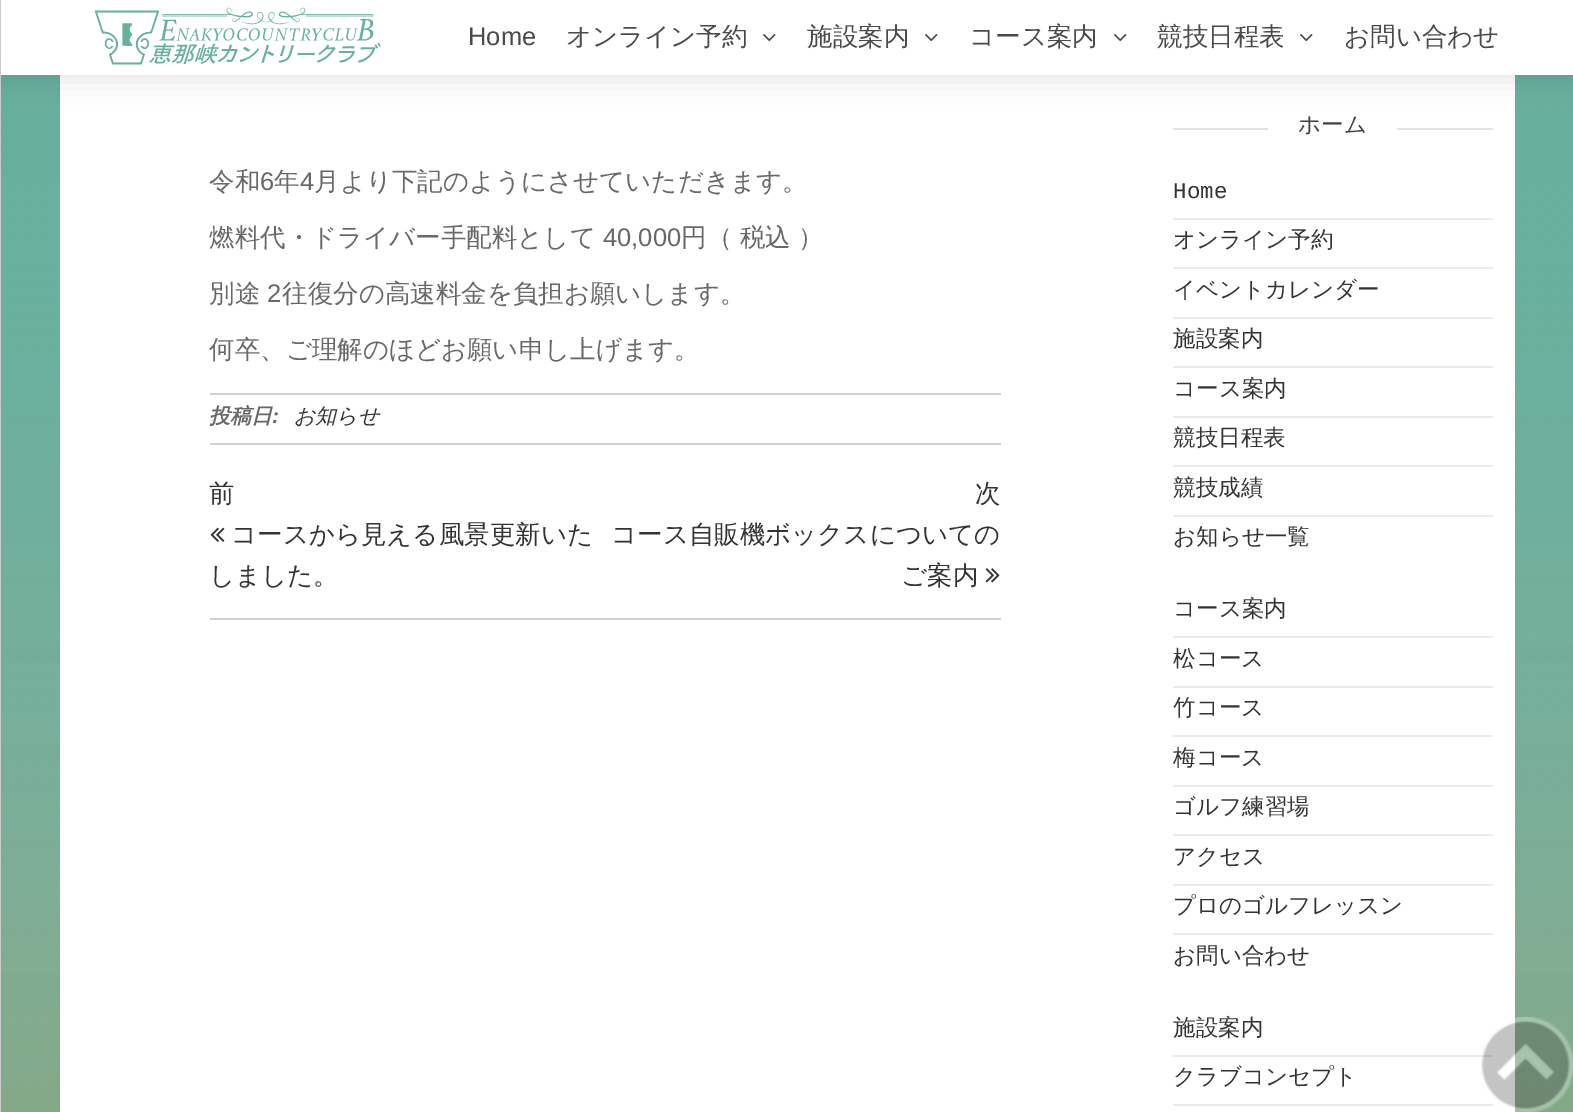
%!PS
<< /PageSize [1573 1112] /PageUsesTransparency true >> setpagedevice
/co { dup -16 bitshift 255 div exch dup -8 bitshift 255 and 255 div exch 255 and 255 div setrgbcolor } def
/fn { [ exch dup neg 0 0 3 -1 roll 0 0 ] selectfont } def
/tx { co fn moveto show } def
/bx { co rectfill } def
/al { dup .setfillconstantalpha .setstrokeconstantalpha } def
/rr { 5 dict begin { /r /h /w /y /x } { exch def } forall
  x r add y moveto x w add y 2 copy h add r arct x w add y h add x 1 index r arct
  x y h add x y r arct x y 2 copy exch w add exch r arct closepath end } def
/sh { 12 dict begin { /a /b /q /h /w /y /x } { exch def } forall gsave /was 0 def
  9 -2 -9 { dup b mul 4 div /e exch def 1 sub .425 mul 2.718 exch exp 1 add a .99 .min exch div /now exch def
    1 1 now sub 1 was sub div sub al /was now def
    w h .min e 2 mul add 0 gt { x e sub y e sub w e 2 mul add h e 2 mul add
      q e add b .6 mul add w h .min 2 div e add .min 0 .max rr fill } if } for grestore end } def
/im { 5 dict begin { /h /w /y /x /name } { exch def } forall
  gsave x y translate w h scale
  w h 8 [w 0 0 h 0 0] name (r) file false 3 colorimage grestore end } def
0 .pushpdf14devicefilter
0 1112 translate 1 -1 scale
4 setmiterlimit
0 0 1573 1112 16#FFFFFF bx
(media/1.raw) 1 75 1572 1037 im
60 75 1455 1037 16#FFFFFF bx
16#000000 co
0 6 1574 75 0 12 .1 sh
0 0 1 1112 16#CBCBCB bx
1 0 1572 75 16#FFFFFF bx
(media/2.raw) 94 7 287 58 im
(media/3.raw) 763 34 13 8 im
(media/3.raw) 925 34 13 8 im
(media/3.raw) 1114 34 13 8 im
(media/3.raw) 1300 34 13 8 im
210 393 791 2 16#D1D1D1 bx
210 443 791 2 16#D1D1D1 bx
210 618 791 2 16#D1D1D1 bx
(media/4.raw) 210 527 15 15 im
(media/5.raw) 985 568 15 15 im
1173 128 320 2 16#E2E2E2 bx
1268 128 129 2 16#FFFFFF bx
1173 218 320 2 16#EBEBEB bx
1173 267 320 2 16#EBEBEB bx
1173 317 320 2 16#EBEBEB bx
1173 366 320 2 16#EBEBEB bx
1173 416 320 2 16#EBEBEB bx
1173 465 320 2 16#EBEBEB bx
1173 515 320 2 16#EBEBEB bx
1173 636 320 2 16#EBEBEB bx
1173 686 320 2 16#EBEBEB bx
1173 735 320 2 16#EBEBEB bx
1173 785 320 2 16#EBEBEB bx
1173 834 320 2 16#EBEBEB bx
1173 884 320 2 16#EBEBEB bx
1173 933 320 2 16#EBEBEB bx
1173 1055 320 2 16#EBEBEB bx
1173 1104 320 2 16#EBEBEB bx
(media/6.raw) 1481 1017 92 95 im
(Home) 468 45 /LiberationSans-Regular 25.5 16#484B49 tx
(オンライン予約) 566 45 /WenQuanYiZenHei-Medium 25.5 16#484B49 tx
(施設案内) 807 45 /WenQuanYiZenHei-Medium 25.5 16#484B49 tx
(コース案内) 969 45 /WenQuanYiZenHei-Medium 25.5 16#484B49 tx
(競技日程表) 1157 45 /WenQuanYiZenHei-Medium 25.5 16#484B49 tx
(お問い合わせ) 1344 45 /WenQuanYiZenHei-Medium 25.5 16#484B49 tx
(令和) 209 190 /WenQuanYiZenHei-Medium 25.5 16#686868 tx
(6) 260 190 /LiberationSans-Regular 25.5 16#686868 tx
(年) 274 190 /WenQuanYiZenHei-Medium 25.5 16#686868 tx
(4) 300 190 /LiberationSans-Regular 25.5 16#686868 tx
(月より下記のようにさせていただきます。) 314 190 /WenQuanYiZenHei-Medium 25.5 16#686868 tx
(燃料代・ドライバー手配料として) 209 246 /WenQuanYiZenHei-Medium 25.5 16#686868 tx
(40,000) 603 246 /LiberationSans-Regular 25.5 16#686868 tx
(円（ 税込 ）) 681 246 /WenQuanYiZenHei-Medium 25.5 16#686868 tx
(別途) 209 302 /WenQuanYiZenHei-Medium 25.5 16#686868 tx
(2) 267 302 /LiberationSans-Regular 25.5 16#686868 tx
(往復分の高速料金を負担お願いします。) 282 302 /WenQuanYiZenHei-Medium 25.5 16#686868 tx
(何卒、ご理解のほどお願い申し上げます。) 209 358 /WenQuanYiZenHei-Medium 25.5 16#686868 tx
(投稿日) 209 423 /WenQuanYiZenHei-BoldItalic 21 16#686868 tx
(:) 272 423 /LiberationSans-BoldItalic 21 16#686868 tx
(お知らせ) 294 423 /WenQuanYiZenHei-MediumItalic 21 16#333333 tx
(前) 209 502 /WenQuanYiZenHei-Medium 25.5 16#333333 tx
(コースから見える風景更新いた) 231 543 /WenQuanYiZenHei-Medium 25.5 16#333333 tx
(しました。) 209 584 /WenQuanYiZenHei-Medium 25.5 16#333333 tx
(次) 975 502 /WenQuanYiZenHei-Medium 25.5 16#333333 tx
(コース自販機ボックスについての) 611 543 /WenQuanYiZenHei-Medium 25.5 16#333333 tx
(ご案内) 901 584 /WenQuanYiZenHei-Medium 25.5 16#333333 tx
(ホーム) 1298 132 /WenQuanYiZenHei-Medium 22.5 16#404040 tx
(Home) 1173 198 /LiberationMono-Regular 22.5 16#333333 tx
(オンライン予約) 1173 247 /WenQuanYiZenHei-Medium 22.5 16#333333 tx
(イベントカレンダー) 1173 297 /WenQuanYiZenHei-Medium 22.5 16#333333 tx
(施設案内) 1173 346 /WenQuanYiZenHei-Medium 22.5 16#333333 tx
(コース案内) 1173 396 /WenQuanYiZenHei-Medium 22.5 16#333333 tx
(競技日程表) 1173 445 /WenQuanYiZenHei-Medium 22.5 16#333333 tx
(競技成績) 1173 495 /WenQuanYiZenHei-Medium 22.5 16#333333 tx
(お知らせ一覧) 1173 544 /WenQuanYiZenHei-Medium 22.5 16#333333 tx
(コース案内) 1173 616 /WenQuanYiZenHei-Medium 22.5 16#333333 tx
(松コース) 1173 666 /WenQuanYiZenHei-Medium 22.5 16#333333 tx
(竹コース) 1173 715 /WenQuanYiZenHei-Medium 22.5 16#333333 tx
(梅コース) 1173 765 /WenQuanYiZenHei-Medium 22.5 16#333333 tx
(ゴルフ練習場) 1173 814 /WenQuanYiZenHei-Medium 22.5 16#333333 tx
(アクセス) 1173 864 /WenQuanYiZenHei-Medium 22.5 16#333333 tx
(プロのゴルフレッスン) 1173 913 /WenQuanYiZenHei-Medium 22.5 16#333333 tx
(お問い合わせ) 1173 963 /WenQuanYiZenHei-Medium 22.5 16#333333 tx
(施設案内) 1173 1035 /WenQuanYiZenHei-Medium 22.5 16#333333 tx
(クラブコンセプト) 1173 1084 /WenQuanYiZenHei-Medium 22.5 16#333333 tx
.poppdf14devicefilter showpage
